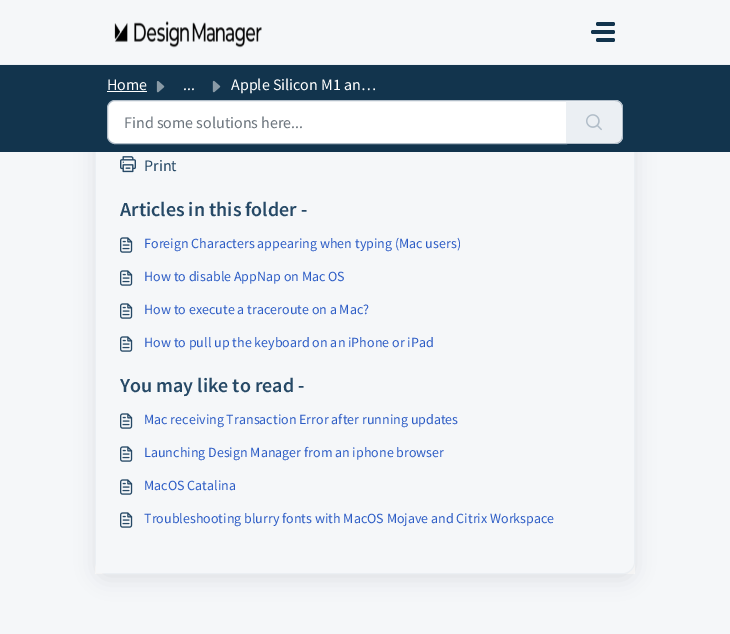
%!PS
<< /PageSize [730 634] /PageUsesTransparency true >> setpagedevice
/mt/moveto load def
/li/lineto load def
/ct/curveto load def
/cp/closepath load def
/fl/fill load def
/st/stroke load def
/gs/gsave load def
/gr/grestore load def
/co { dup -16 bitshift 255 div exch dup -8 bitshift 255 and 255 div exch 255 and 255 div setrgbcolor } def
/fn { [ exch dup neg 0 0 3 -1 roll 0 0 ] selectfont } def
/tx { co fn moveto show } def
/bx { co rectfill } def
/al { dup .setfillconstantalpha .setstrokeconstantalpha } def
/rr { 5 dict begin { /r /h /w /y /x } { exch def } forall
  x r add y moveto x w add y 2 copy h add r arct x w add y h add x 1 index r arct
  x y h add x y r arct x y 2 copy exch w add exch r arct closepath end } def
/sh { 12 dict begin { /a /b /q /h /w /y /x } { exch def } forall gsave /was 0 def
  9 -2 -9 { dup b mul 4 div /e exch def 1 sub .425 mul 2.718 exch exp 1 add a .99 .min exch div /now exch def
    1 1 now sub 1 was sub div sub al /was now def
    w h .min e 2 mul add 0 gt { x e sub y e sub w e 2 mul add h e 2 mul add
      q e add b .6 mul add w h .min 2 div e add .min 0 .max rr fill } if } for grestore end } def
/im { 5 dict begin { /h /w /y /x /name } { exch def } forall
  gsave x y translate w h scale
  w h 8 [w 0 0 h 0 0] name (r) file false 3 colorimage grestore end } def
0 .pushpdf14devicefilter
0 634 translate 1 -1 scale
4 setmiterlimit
0 0 730 634 16#F5F7F9 bx
0 64 730 1 16#EBEFF3 bx
(media/1.raw) 114 21 148 27 im
16#12344D co
596 22 19 4 2 rr fl
591 30 24 4 2 rr fl
596 38 19 4 2 rr fl
95 561 540 13 16#FFFFFF bx
16#27313A co
95 134 540 446 12 9.5 .1 sh
16#EBEFF3 co
95.5 128.5 539 445 11.5 rr st
16#F5F7F9 co
96 129 mt 622 129 li 628.5 129 634 134.5 634 141 ct 634 561 li 634 567.5 628.5 573 622 573 ct 96 573 li cp fl
0 65 730 87 16#12344D bx
107 91 40 1 16#FFFFFF bx
(media/2.raw) 156 81 9 12 im
(media/3.raw) 212 80 9 13 im
115 100.5 mt 566.5 100.5 li 566.5 143.5 li 115 143.5 li 111 143.5 107.5 140 107.5 136 ct 107.5 108 li 107.5 104 111 100.5 115 100.5 ct cp gs fl gr
16#B1BDC8 co
st
16#EBEFF3 co
566 100 mt 615 100 li 619.5 100 623 103.5 623 108 ct 623 136 li 623 140.5 619.5 144 615 144 ct 566 144 li cp fl
16#B1BDC8 co
566 100 mt 615 100 li 619 100 623 104 623 108 ct 623 136 li 623 140 619 144 615 144 ct 566 144 li cp 566 101 mt 615 101 li 619 101 622 104 622 108 ct 622 136 li 622 140 619 143 615 143 ct 566 143 li cp eofill
(media/4.raw) 586 114 16 17 im
(media/5.raw) 120 156 16 17 im
(media/6.raw) 120 237 13 16 im
(media/6.raw) 120 270 13 16 im
(media/6.raw) 120 303 13 16 im
(media/6.raw) 120 336 13 16 im
(media/6.raw) 120 413 13 16 im
(media/6.raw) 120 446 13 16 im
(media/6.raw) 120 479 13 16 im
(media/6.raw) 120 512 13 16 im
(Home) 107 90 /SourceSansPro-Regular 16 16#FFFFFF tx
(...) 183 90 /SourceSansPro-Regular 16 16#FFFFFF tx
(Apple Silicon M1 an…) 231 90 /SourceSansPro-Regular 16 16#FFFFFF tx
(Find some solutions here...) 124 128 /SourceSansPro-Regular 16 16#6C757D tx
(Print) 144 171 /SourceSansPro-Regular 16 16#264966 tx
(Articles in this folder -) 120 216 /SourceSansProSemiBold-SemiBold 20 16#264966 tx
(Foreign Characters appearing when typing \(Mac users\)) 144 248 /SourceSansPro-Regular 14 16#2C5CC5 tx
(How to disable AppNap on Mac OS) 144 281 /SourceSansPro-Regular 14 16#2C5CC5 tx
(How to execute a traceroute on a Mac?) 144 314 /SourceSansPro-Regular 14 16#2C5CC5 tx
(How to pull up the keyboard on an iPhone or iPad) 144 347 /SourceSansPro-Regular 14 16#2C5CC5 tx
(You may like to read -) 120 392 /SourceSansProSemiBold-SemiBold 20 16#264966 tx
(Mac receiving Transaction Error after running updates) 144 424 /SourceSansPro-Regular 14 16#2C5CC5 tx
(Launching Design Manager from an iphone browser) 144 457 /SourceSansPro-Regular 14 16#2C5CC5 tx
(MacOS Catalina) 144 490 /SourceSansPro-Regular 14 16#2C5CC5 tx
(Troubleshooting blurry fonts with MacOS Mojave and Citrix Workspace) 144 523 /SourceSansPro-Regular 14 16#2C5CC5 tx
.poppdf14devicefilter showpage
